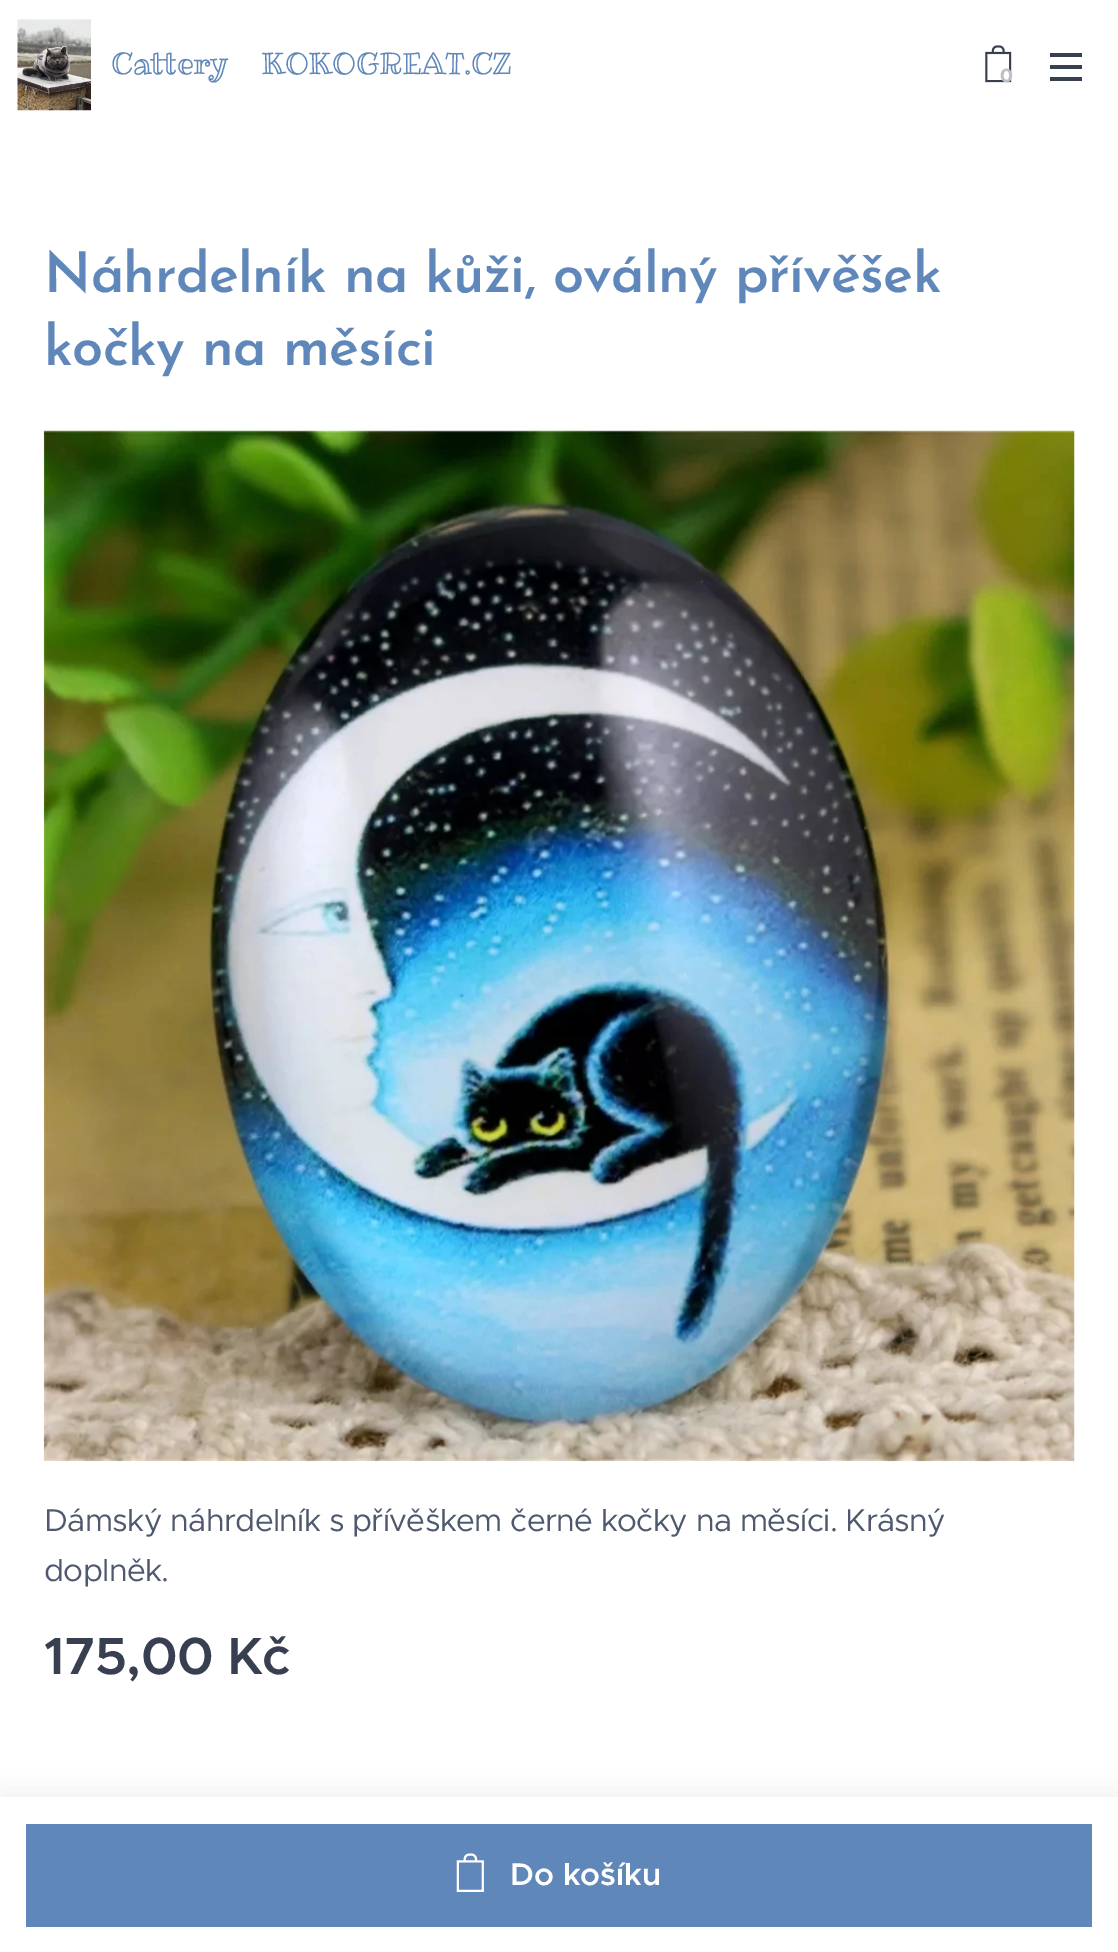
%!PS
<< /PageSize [1118 1952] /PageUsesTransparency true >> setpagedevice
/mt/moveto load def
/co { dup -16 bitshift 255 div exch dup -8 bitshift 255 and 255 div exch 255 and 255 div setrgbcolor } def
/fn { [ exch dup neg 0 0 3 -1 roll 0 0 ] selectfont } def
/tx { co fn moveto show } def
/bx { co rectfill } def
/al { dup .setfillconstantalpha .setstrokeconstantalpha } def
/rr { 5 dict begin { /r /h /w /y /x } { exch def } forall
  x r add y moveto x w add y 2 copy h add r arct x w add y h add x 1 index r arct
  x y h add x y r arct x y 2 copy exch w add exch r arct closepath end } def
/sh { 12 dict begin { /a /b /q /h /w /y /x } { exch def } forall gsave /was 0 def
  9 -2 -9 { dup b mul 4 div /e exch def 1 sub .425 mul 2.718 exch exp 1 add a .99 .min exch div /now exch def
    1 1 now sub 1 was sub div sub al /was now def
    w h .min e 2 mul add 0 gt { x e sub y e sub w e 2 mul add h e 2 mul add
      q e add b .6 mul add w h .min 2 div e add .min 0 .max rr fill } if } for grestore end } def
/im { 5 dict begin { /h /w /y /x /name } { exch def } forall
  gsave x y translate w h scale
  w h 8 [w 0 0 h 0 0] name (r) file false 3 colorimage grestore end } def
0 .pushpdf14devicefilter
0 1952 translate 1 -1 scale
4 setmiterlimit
0 0 1118 1952 16#FFFFFF bx
(media/1.raw) 17 19 74 92 im
(media/2.raw) 985 45 27 38 im
1050 65 32 4 16#373F51 bx
1050 53 32 4 16#373F51 bx
1050 77 32 4 16#373F51 bx
(media/3.raw) 43 430 1032 1032 im
16#000000 co
0 1790 1118 156 0 13 .06 sh
0 1797 1118 155 16#FFFFFF bx
26 1824 1066 103 16#6087B9 bx
(media/4.raw) 456 1853 28 39 im
/RibeyeMarrow-Regular 30.1 fn
111 74 mt -.65 0 (Cattery    KOKOGREAT.CZ) ashow
(0) 1000 82 /Montserrat-Bold 19 16#BEC0C6 tx
/JosefinSans-SemiBold 56 fn
16#6087B9 co
44 292 mt -.65 0 (Náhrdelník na kůži, oválný přívěšek) ashow
44 365 mt -.65 0 (kočky na měsíci) ashow
/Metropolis-Regular 31.5 fn
16#4E586E co
44 1531 mt -.65 0 (Dámský náhrdelník s přívěškem černé kočky na měsíci. Krásný) ashow
44 1581 mt -.65 0 (doplněk.) ashow
/Metropolis-SemiBold 52.5 fn
16#373F51 co
44 1674 mt -.65 0 (175,00 Kč) ashow
(Do košíku) 510 1885 /Metropolis-SemiBold 31.5 16#FFFFFF tx
.poppdf14devicefilter showpage
